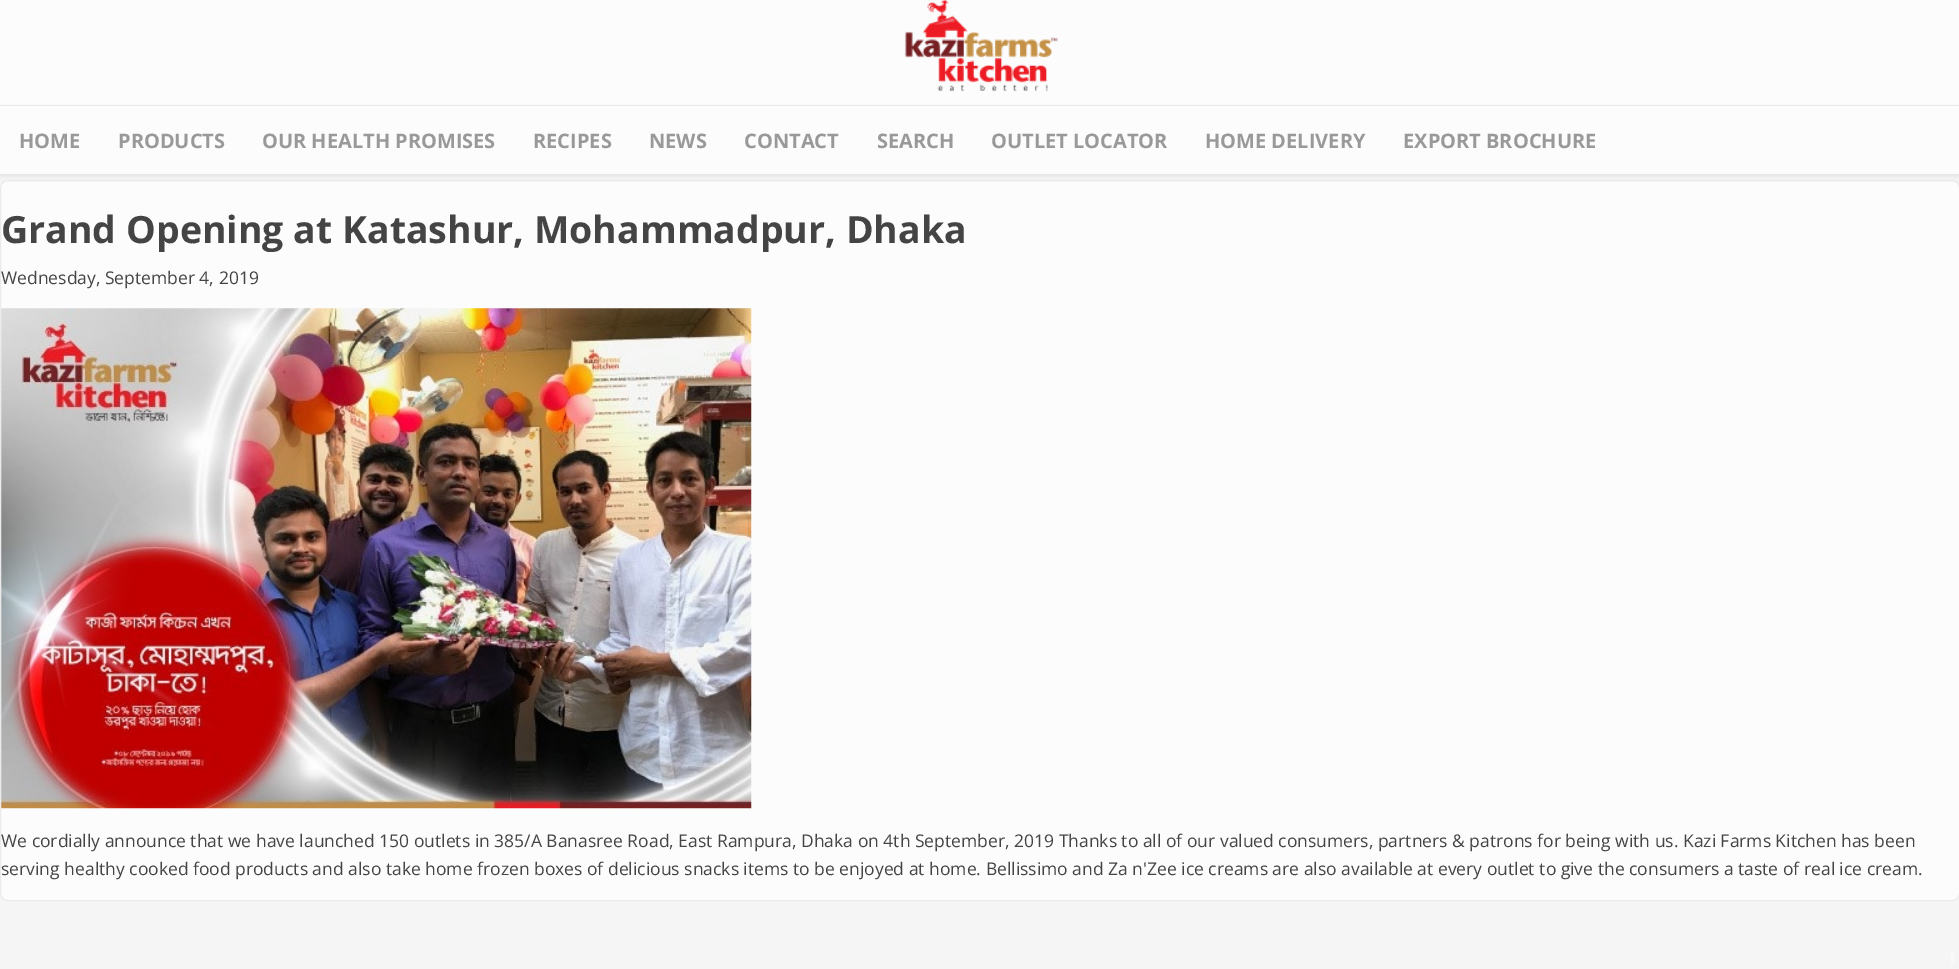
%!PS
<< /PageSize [1959 969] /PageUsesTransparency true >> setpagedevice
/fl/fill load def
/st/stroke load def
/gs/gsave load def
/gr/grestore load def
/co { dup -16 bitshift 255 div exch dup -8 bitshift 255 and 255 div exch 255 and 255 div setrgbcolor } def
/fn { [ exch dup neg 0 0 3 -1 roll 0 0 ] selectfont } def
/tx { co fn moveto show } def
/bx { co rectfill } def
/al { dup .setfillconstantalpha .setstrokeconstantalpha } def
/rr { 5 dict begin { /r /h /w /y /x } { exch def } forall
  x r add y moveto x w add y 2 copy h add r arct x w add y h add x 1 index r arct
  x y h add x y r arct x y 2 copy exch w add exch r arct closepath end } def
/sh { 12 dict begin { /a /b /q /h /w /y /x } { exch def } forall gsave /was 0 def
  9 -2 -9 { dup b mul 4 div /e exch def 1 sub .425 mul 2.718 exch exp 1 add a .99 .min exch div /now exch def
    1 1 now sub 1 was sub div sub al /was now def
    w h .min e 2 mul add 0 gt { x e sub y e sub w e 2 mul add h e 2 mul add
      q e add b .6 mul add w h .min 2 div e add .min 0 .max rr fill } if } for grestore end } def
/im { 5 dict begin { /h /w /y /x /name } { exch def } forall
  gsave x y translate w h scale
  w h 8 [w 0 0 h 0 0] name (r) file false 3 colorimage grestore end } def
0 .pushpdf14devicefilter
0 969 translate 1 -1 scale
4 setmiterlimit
0 0 1959 969 16#F5F5F5 bx
0 0 1959 105 16#FCFCFC bx
0 105 1959 1 16#EAEAEA bx
(media/1.raw) 904 0 154 91 im
16#FCFCFC co
.5 180.5 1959 720 7.5 rr gs fl gr
16#EAEAEA co
st
16#000000 co
0 109 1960 67 0 2.5 .07 sh
0 106 1959 68 16#FCFCFC bx
(media/2.raw) 1 308 751 501 im
16#F9F9F9 co
1951 951 3 13 1.5 rr fl
(HOME) 19 148 /OpenSans-Bold 20 16#999999 tx
(PRODUCTS) 118 148 /OpenSans-Bold 20 16#999999 tx
(OUR HEALTH PROMISES) 262 148 /OpenSans-Bold 20 16#999999 tx
(RECIPES) 533 148 /OpenSans-Bold 20 16#999999 tx
(NEWS) 649 148 /OpenSans-Bold 20 16#999999 tx
(CONTACT) 744 148 /OpenSans-Bold 20 16#999999 tx
(SEARCH) 877 148 /OpenSans-Bold 20 16#999999 tx
(OUTLET LOCATOR) 991 148 /OpenSans-Bold 20 16#999999 tx
(HOME DELIVERY) 1205 148 /OpenSans-Bold 20 16#999999 tx
(EXPORT BROCHURE) 1403 148 /OpenSans-Bold 20 16#999999 tx
(Grand Opening at Katashur, Mohammadpur, Dhaka) 1 243 /OpenSans-Bold 37.5 16#444444 tx
(Wednesday, September 4, 2019) 1 284 /OpenSans-Regular 17.5 16#444444 tx
(We cordially announce that we have launched 150 outlets in 385/A Banasree Road, East Rampura, Dhaka on 4th September, 2019 Thanks to all of our valued consumers, partners & patrons for being with us. Kazi Farms Kitchen has been) 1 847 /OpenSans-Regular 17.5 16#444444 tx
(serving healthy cooked food products and also take home frozen boxes of delicious snacks items to be enjoyed at home. Bellissimo and Za n'Zee ice creams are also available at every outlet to give the consumers a taste of real ice cream.) 1 875 /OpenSans-Regular 17.5 16#444444 tx
.poppdf14devicefilter showpage
